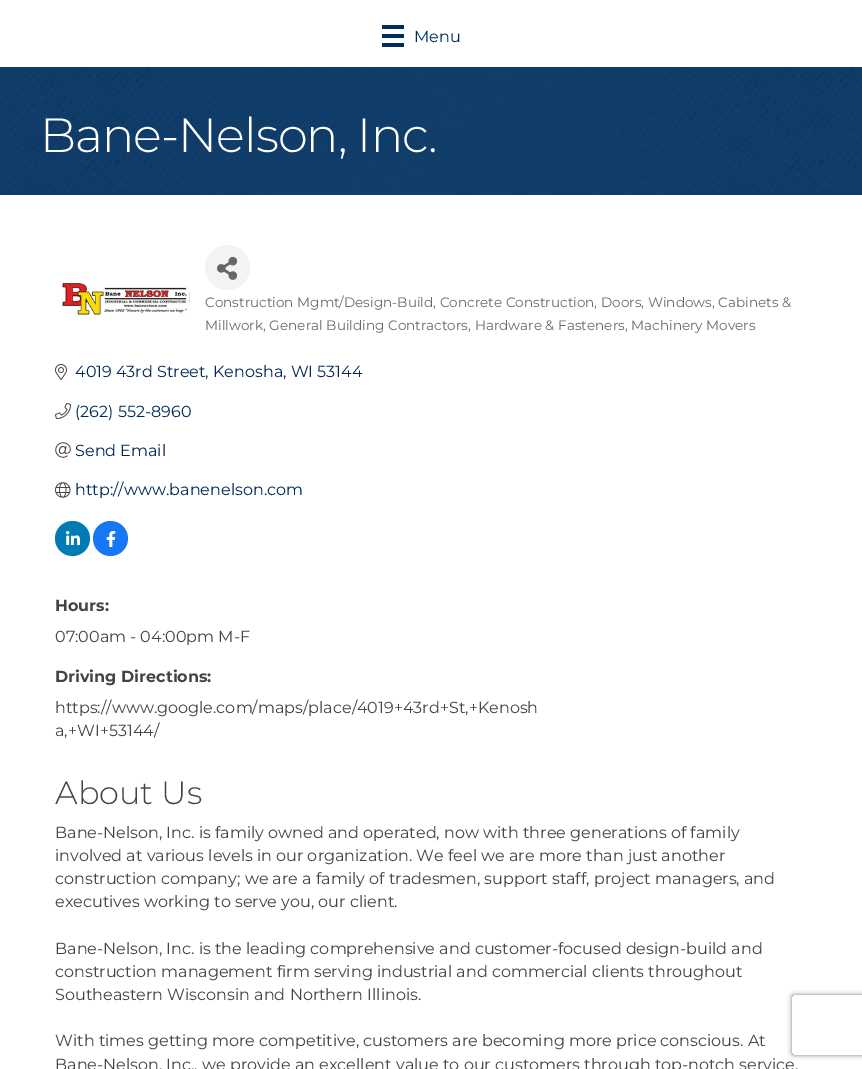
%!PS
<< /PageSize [862 1069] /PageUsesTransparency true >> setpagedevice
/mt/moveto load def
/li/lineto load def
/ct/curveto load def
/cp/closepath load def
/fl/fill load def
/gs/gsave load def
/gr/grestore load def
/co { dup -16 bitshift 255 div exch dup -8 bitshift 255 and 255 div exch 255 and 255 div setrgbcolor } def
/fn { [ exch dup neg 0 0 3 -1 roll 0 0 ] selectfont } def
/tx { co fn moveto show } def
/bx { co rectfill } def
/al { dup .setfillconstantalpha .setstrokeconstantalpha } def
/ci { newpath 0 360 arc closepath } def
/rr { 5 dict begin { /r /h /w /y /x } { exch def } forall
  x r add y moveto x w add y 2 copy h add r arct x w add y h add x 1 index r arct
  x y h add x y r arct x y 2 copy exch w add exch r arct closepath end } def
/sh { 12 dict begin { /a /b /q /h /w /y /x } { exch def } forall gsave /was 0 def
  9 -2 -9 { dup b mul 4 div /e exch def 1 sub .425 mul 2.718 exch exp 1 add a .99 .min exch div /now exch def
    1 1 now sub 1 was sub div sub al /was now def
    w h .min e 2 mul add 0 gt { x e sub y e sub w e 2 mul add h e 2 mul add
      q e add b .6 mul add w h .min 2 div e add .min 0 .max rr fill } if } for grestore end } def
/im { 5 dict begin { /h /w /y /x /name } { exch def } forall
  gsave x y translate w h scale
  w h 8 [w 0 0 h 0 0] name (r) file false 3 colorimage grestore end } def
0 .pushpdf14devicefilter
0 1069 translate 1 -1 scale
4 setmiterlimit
0 0 862 1069 16#FFFFFF bx
382 25 22 4 16#002F5F bx
382 34 22 4 16#002F5F bx
382 43 22 4 16#002F5F bx
(media/1.raw) 0 67 862 128 im
(media/2.raw) 59 279 131 39 im
16#F3F3F3 co
227.5 267.5 22.5 ci fl
(media/3.raw) 217 256 21 24 im
(media/4.raw) 55 364 12 16 im
(media/5.raw) 55 403 16 16 im
(media/6.raw) 55 442 16 16 im
(media/7.raw) 55 482 16 16 im
16#007BB5 co
72.5 538.5 17.5 ci fl
(media/8.raw) 66 531 14 14 im
16#1877F2 co
110.5 538.5 17.5 ci fl
(media/9.raw) 106 531 10 16 im
gs
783 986 mt 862 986 li 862 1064 li 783 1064 li cp 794 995 mt 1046 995 li 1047 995 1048 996 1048 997 ct 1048 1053 li 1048 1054 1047 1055 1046 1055 ct 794 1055 li 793 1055 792 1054 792 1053 ct 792 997 li 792 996 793 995 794 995 ct cp eoclip newpath
16#808080 co
792 995 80 60 2 2.5 1 sh
gr
(Menu) 414 42 /Montserrat-Regular 16 16#002F5F tx
/Montserrat-Light 48 fn
16#FFFFFF co
40 152 mt -1 0 (Bane-Nelson, Inc.) ashow
(Construction Mgmt/Design-Build, Concrete Construction, Doors, Windows, Cabinets &) 205 307 /Montserrat-Regular 13.6 16#696969 tx
(Millwork, General Building Contractors, Hardware & Fasteners, Machinery Movers) 205 330 /Montserrat-Regular 13.6 16#696969 tx
(4019 43rd Street, Kenosha, WI 53144) 75 377 /Montserrat-Regular 16 16#002857 tx
(\(262\) 552-8960) 75 417 /Montserrat-Regular 16 16#002857 tx
(Send Email) 75 456 /Montserrat-Regular 16 16#002857 tx
(http://www.banenelson.com) 75 495 /Montserrat-Regular 16 16#002857 tx
(Hours:) 55 611 /Montserrat-Bold 16 16#444444 tx
(07:00am - 04:00pm M-F) 55 642 /Montserrat-Regular 16 16#444444 tx
(Driving Directions:) 55 682 /Montserrat-Bold 16 16#444444 tx
(https://www.google.com/maps/place/4019+43rd+St,+Kenosh) 55 713 /Montserrat-Regular 16 16#444444 tx
(a,+WI+53144/) 55 736 /Montserrat-Regular 16 16#444444 tx
(About Us) 55 804 /Montserrat-Light 32 16#444444 tx
(Bane-Nelson, Inc. is family owned and operated, now with three generations of family) 55 838 /Montserrat-Regular 16 16#444444 tx
(involved at various levels in our organization. We feel we are more than just another) 55 861 /Montserrat-Regular 16 16#444444 tx
(construction company; we are a family of tradesmen, support staff, project managers, and) 55 884 /Montserrat-Regular 16 16#444444 tx
(executives working to serve you, our client.) 55 907 /Montserrat-Regular 16 16#444444 tx
(Bane-Nelson, Inc. is the leading comprehensive and customer-focused design-build and) 55 954 /Montserrat-Regular 16 16#444444 tx
(construction management firm serving industrial and commercial clients throughout) 55 977 /Montserrat-Regular 16 16#444444 tx
(Southeastern Wisconsin and Northern Illinois.) 55 1000 /Montserrat-Regular 16 16#444444 tx
(With times getting more competitive, customers are becoming more price conscious. At) 55 1046 /Montserrat-Regular 16 16#444444 tx
(Bane-Nelson, Inc., we provide an excellent value to our customers through top-notch service,) 55 1070 /Montserrat-Regular 16 16#444444 tx
.poppdf14devicefilter showpage
